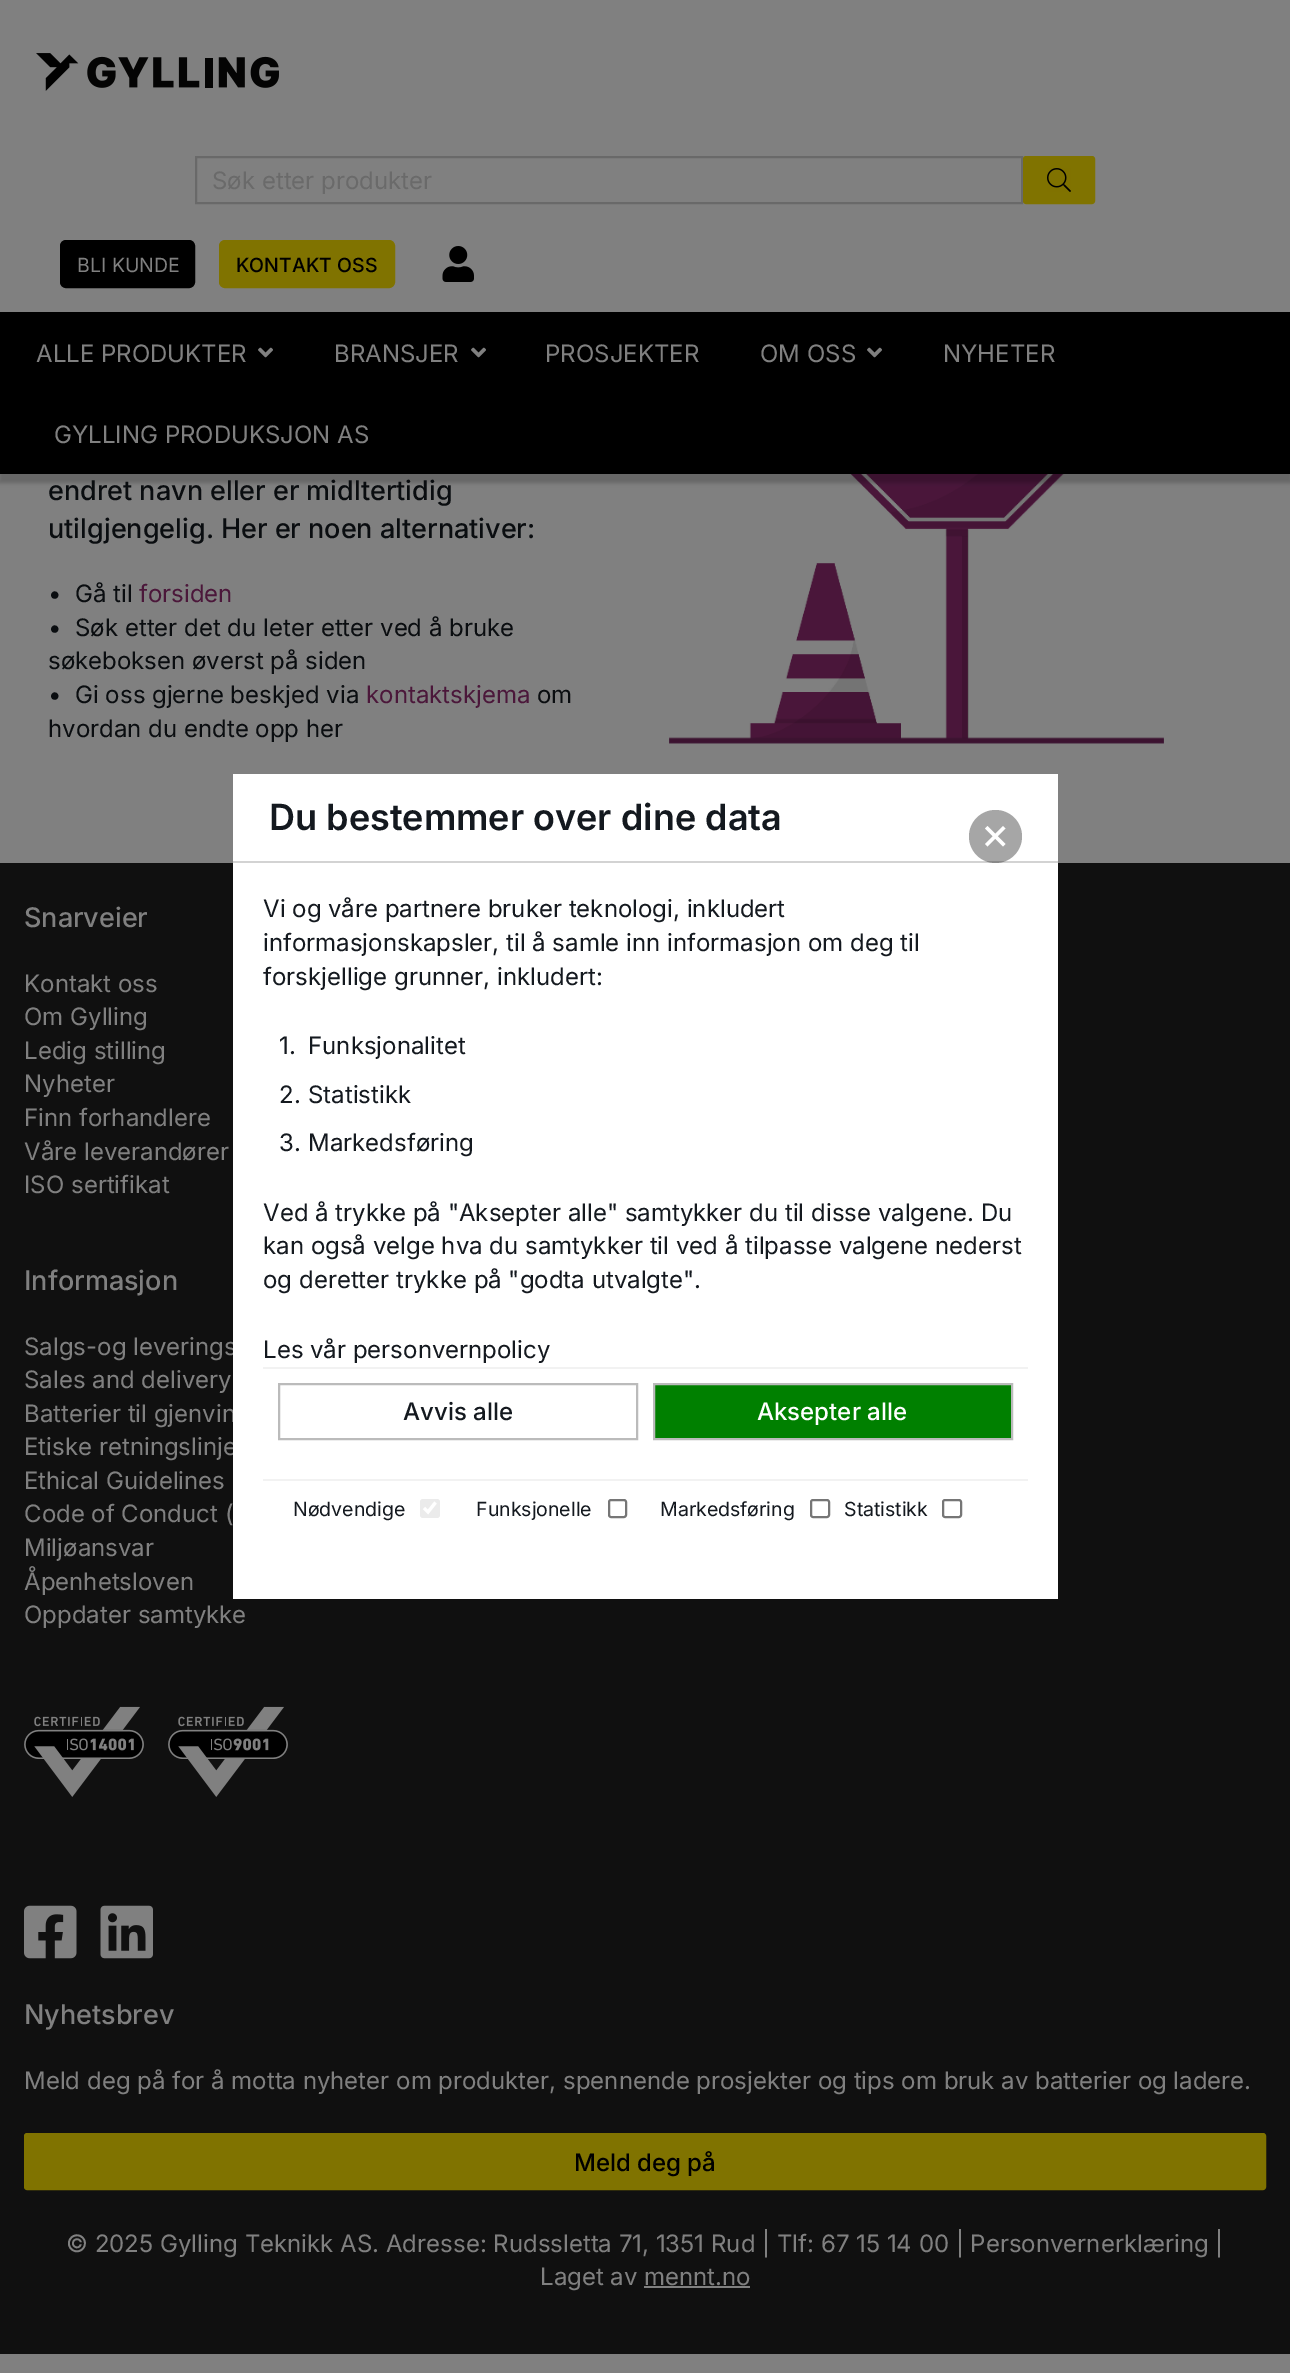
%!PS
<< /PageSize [1290 2373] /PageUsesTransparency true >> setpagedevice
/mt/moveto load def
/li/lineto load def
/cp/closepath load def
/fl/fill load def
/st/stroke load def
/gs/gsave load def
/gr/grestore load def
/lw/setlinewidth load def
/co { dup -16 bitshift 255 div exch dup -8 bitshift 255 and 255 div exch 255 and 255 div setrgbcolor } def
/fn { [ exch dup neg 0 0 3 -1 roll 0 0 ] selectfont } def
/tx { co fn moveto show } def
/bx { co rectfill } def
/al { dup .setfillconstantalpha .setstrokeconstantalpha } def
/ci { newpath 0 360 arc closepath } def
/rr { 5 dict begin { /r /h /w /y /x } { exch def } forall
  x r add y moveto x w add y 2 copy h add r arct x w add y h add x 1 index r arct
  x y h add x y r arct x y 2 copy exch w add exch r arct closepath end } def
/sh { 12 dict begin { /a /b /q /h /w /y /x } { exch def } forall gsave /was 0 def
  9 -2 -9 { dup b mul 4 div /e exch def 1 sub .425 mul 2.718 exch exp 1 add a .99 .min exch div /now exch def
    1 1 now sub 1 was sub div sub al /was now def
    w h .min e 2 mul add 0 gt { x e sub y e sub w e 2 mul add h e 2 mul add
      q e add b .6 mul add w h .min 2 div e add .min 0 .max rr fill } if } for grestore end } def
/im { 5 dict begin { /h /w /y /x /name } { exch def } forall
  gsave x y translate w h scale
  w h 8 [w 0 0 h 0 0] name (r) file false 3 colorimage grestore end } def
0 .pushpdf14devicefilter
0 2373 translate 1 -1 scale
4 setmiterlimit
0 0 1290 2373 16#808080 bx
(media/1.raw) 36 53 243 38 im
16#696969 co
2 lw
196 157 826 46 rectstroke
16#807300 co
1024 157 70 46 2 rr gs fl gr
st
(media/2.raw) 1047 168 24 24 im
16#000000 co
61 241 133 46 5 rr gs fl gr
st
16#807300 co
220 241 174 46 5 rr gs fl gr
st
(media/3.raw) 442 246 32 36 im
(media/5.raw) 669 474 495 270 im
16#000000 co
-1 318 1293 165 0 2 .2 sh
0 312 1290 162 16#000000 bx
(media/4.raw) 258 347 15 11 im
(media/4.raw) 471 347 15 11 im
(media/4.raw) 867 347 15 11 im
0 863 1290 1491 16#101010 bx
(media/6.raw) 24 1706 120 91 im
(media/7.raw) 168 1706 120 91 im
(media/8.raw) 24 1905 53 54 im
(media/9.raw) 100 1905 53 54 im
16#807300 co
25 2134 1240 55 2 rr gs fl gr
st
644 2286 106 2 16#808080 bx
(Søk etter produkter) 212 189 /Inter-Regular 24 16#6A6A6A tx
(BLI KUNDE) 77 272 /Inter-Regular 19.5 16#808080 tx
(KONTAKT OSS) 236 272 /Inter-Medium 19.5 16#000000 tx
(ALLE PRODUKTER) 36 362 /Inter-Regular 24 16#808080 tx
(BRANSJER) 334 362 /Inter-Regular 24 16#808080 tx
(PROSJEKTER) 545 362 /Inter-Regular 24 16#808080 tx
(OM OSS) 760 362 /Inter-Regular 24 16#808080 tx
(NYHETER) 943 362 /Inter-Regular 24 16#808080 tx
(GYLLING PRODUKSJON AS) 54 443 /Inter-Regular 24 16#808080 tx
(endret navn eller er midltertidig) 48 500 /Inter-Medium 27 16#0A0D10 tx
(utilgjengelig. Her er noen alternativer:) 48 538 /Inter-Medium 27 16#0A0D10 tx
(•  Gå til) 48 602 /Inter-Regular 24 16#0A0D10 tx
(forsiden) 139 602 /Inter-Regular 24 16#4B173A tx
(•  Søk etter det du leter etter ved å bruke) 48 636 /Inter-Regular 24 16#0A0D10 tx
(søkeboksen øverst på siden) 48 669 /Inter-Regular 24 16#0A0D10 tx
(•  Gi oss gjerne beskjed via) 48 703 /Inter-Regular 24 16#0A0D10 tx
(kontaktskjema) 366 703 /Inter-Regular 24 16#4B173A tx
(om) 537 703 /Inter-Regular 24 16#0A0D10 tx
(hvordan du endte opp her) 48 737 /Inter-Regular 24 16#0A0D10 tx
(Snarveier) 24 927 /Inter-Medium 27 16#808080 tx
(Kontakt oss) 24 992 /Inter-Regular 24 16#808080 tx
(Om Gylling) 24 1025 /Inter-Regular 24 16#808080 tx
(Ledig stilling) 24 1059 /Inter-Regular 24 16#808080 tx
(Nyheter) 24 1092 /Inter-Regular 24 16#808080 tx
(Finn forhandlere) 24 1126 /Inter-Regular 24 16#808080 tx
(Våre leverandører) 24 1160 /Inter-Regular 24 16#808080 tx
(ISO sertifikat) 24 1193 /Inter-Regular 24 16#808080 tx
(Informasjon) 24 1290 /Inter-Medium 27 16#808080 tx
(Salgs-og leverings) 24 1355 /Inter-Regular 24 16#808080 tx
(Sales and delivery) 24 1388 /Inter-Regular 24 16#808080 tx
(Batterier til gjenvin) 24 1422 /Inter-Regular 24 16#808080 tx
(Etiske retningslinje) 24 1455 /Inter-Regular 24 16#808080 tx
233 774 825 825 16#FFFFFF bx
233 861 825 2 16#D3D3D3 bx
0.35 al
16#000000 co
995.5 836.5 26.5 ci fl
1 al
16#FFFFFF co
987.5 826 mt 1005.5 844 li 1003 846.5 li 985 828.5 li cp fl
985 844 mt 1003 826 li 1005.5 828.5 li 987.5 846.5 li cp fl
16#EBEBEB co
420 1499 20 19 3 rr fl
16#FFFFFF co
3.1 lw
424 1508 mt 428 1512 li 435.5 1502.5 li st
16#767676 co
2 lw
943 1500 18 17 2 rr st
(Statistikk) 844 1516 /Inter-Regular 19.5 16#14191F tx
16#767676 co
811 1500 18 17 2 rr st
(Markedsføring) 660 1516 /Inter-Regular 19.5 16#14191F tx
16#767676 co
609 1500 17 17 2 rr st
(Funksjonelle) 476 1516 /Inter-Regular 19.5 16#14191F tx
(Nødvendige) 293 1516 /Inter-Regular 19.5 16#14191F tx
16#008000 co
654 1384 mt 1012 1384 li 1012 1439 li 654 1439 li cp gs fl gr
16#BBBBBB co
st
(Aksepter alle) 757 1420 /Inter-Medium 24 16#FFFFFF tx
16#BBBBBB co
279 1384 358 55 rectstroke
(Avvis alle) 403 1420 /Inter-Medium 24 16#14191F tx
(Les vår personvernpolicy) 263 1358 /Inter-Regular 24 16#14191F tx
(og deretter trykke på "godta utvalgte".) 263 1288 /Inter-Regular 24 16#14191F tx
(kan også velge hva du samtykker til ved å tilpasse valgene nederst) 263 1254 /Inter-Regular 24 16#14191F tx
(Ved å trykke på "Aksepter alle" samtykker du til disse valgene. Du) 263 1221 /Inter-Regular 24 16#14191F tx
(Markedsføring) 308 1151 /Inter-Regular 24 16#14191F tx
(3.) 279 1151 /Inter-Regular 24 16#14191F tx
(Statistikk) 308 1103 /Inter-Regular 24 16#14191F tx
(2.) 279 1103 /Inter-Regular 24 16#14191F tx
(Funksjonalitet) 308 1054 /Inter-Regular 24 16#14191F tx
(1.) 279 1054 /Inter-Regular 24 16#14191F tx
(forskjellige grunner, inkludert:) 263 985 /Inter-Regular 24 16#14191F tx
(informasjonskapsler, til å samle inn informasjon om deg til) 263 951 /Inter-Regular 24 16#14191F tx
(Vi og våre partnere bruker teknologi, inkludert) 263 917 /Inter-Regular 24 16#14191F tx
263 1479 765 2 16#F2F2F2 bx
263 1367 765 2 16#F2F2F2 bx
(Du bestemmer over dine data) 269 830 /Inter-SemiBold 36 16#14191F tx
(Ethical Guidelines) 24 1489 /Inter-Regular 24 16#808080 tx
(Code of Conduct \() 24 1522 /Inter-Regular 24 16#808080 tx
(Miljøansvar) 24 1556 /Inter-Regular 24 16#808080 tx
(Åpenhetsloven) 24 1590 /Inter-Regular 24 16#808080 tx
(Oppdater samtykke) 24 1623 /Inter-Regular 24 16#808080 tx
(Nyhetsbrev) 24 2024 /Inter-Medium 27 16#808080 tx
(Meld deg på for å motta nyheter om produkter, spennende prosjekter og tips om bruk av batterier og ladere.) 24 2089 /Inter-Regular 24 16#808080 tx
(Meld deg på) 574 2171 /Inter-Medium 24 16#000000 tx
(© 2025 Gylling Teknikk AS. Adresse: Rudssletta 71, 1351 Rud | Tlf: 67 15 14 00 | Personvernerklæring |) 66 2252 /Inter-Regular 24 16#808080 tx
(Laget av mennt.no) 540 2285 /Inter-Regular 24 16#808080 tx
.poppdf14devicefilter showpage
